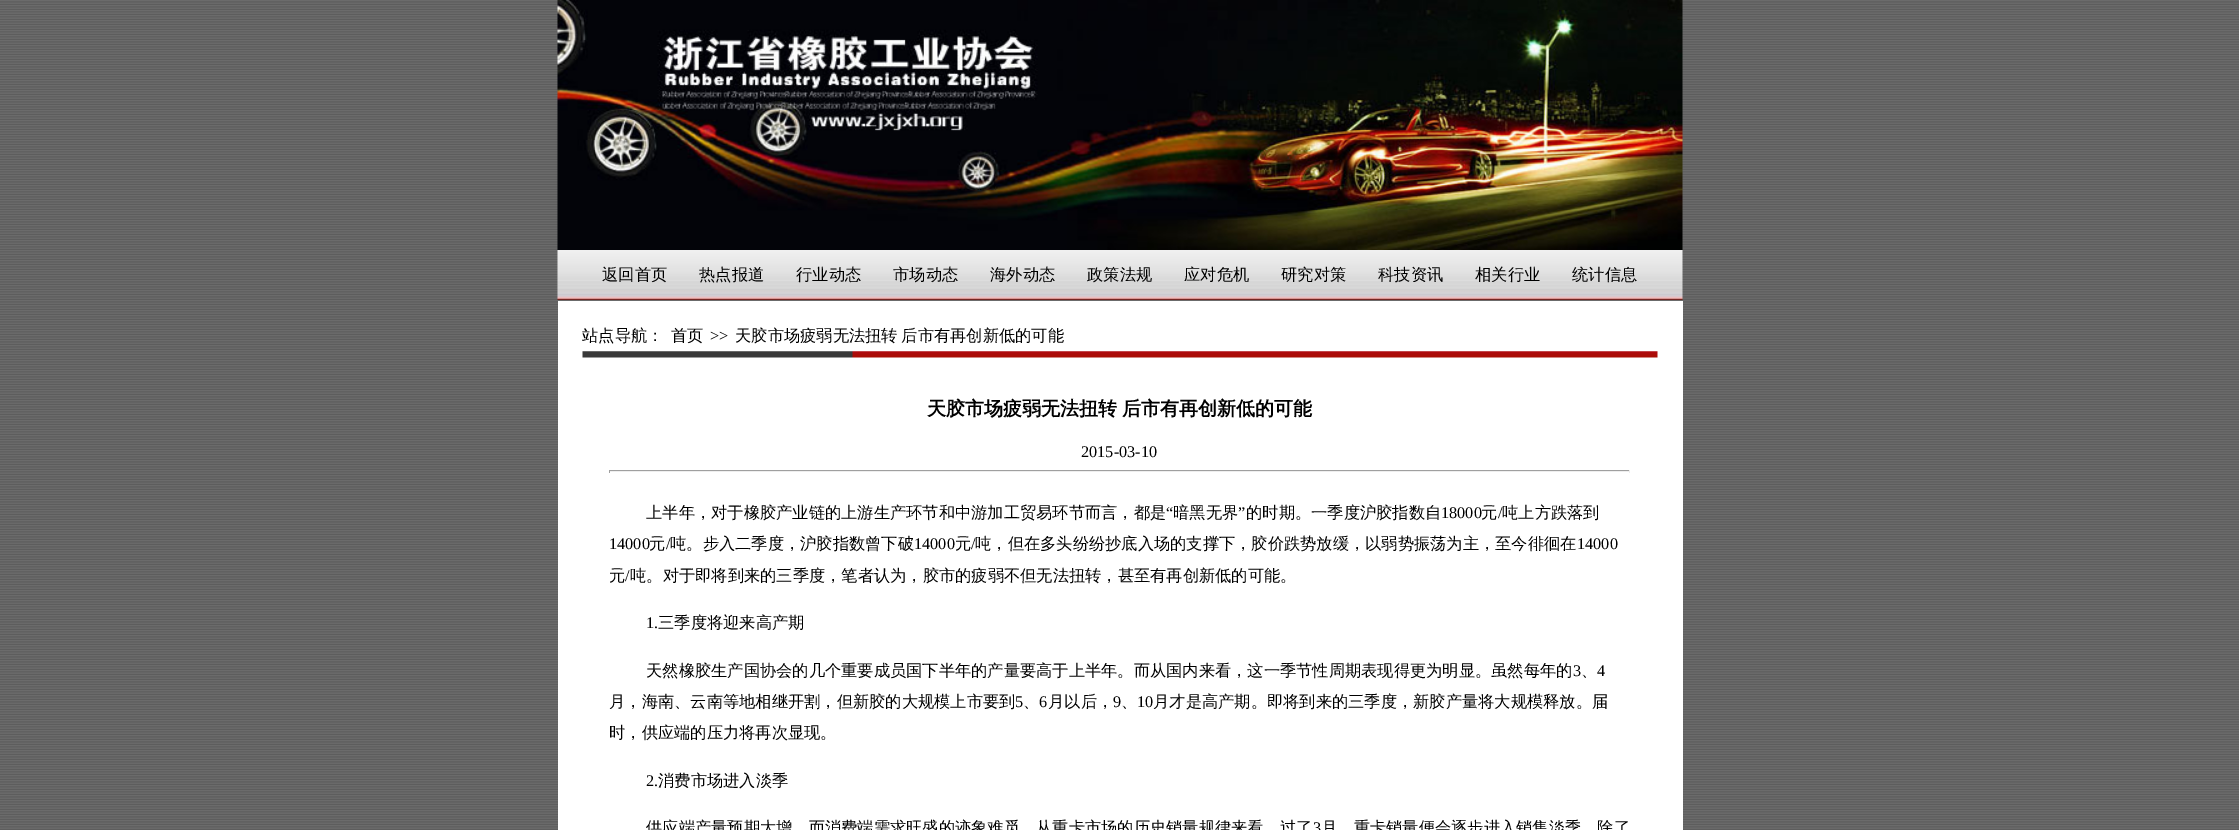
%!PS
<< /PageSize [2239 830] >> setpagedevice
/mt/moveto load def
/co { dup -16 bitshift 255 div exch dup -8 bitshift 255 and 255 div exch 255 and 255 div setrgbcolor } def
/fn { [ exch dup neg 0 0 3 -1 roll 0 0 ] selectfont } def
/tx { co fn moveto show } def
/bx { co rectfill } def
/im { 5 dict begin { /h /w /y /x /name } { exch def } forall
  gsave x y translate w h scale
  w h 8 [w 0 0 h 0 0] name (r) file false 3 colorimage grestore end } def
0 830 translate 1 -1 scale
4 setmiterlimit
0 0 2239 830 16#FFFFFF bx
(media/1.raw) 0 0 2239 830 im
(media/2.raw) 557 0 1126 250 im
(media/3.raw) 557 250 1126 50 im
558 301 25 529 16#FFFFFF bx
583 301 1075 529 16#FFFFFF bx
1658 301 25 529 16#FFFFFF bx
(media/4.raw) 582 351 1076 7 im
609 470 1021 1 16#9F9F9F bx
1629 470 1 3 16#EEEEEE bx
609 471 1021 1 16#EEEEEE bx
609 470 1 3 16#9F9F9F bx
(返回首页) 602 280 /WenQuanYiZenHei-Medium 16.25 16#000000 tx
(热点报道) 699 280 /WenQuanYiZenHei-Medium 16.25 16#000000 tx
(行业动态) 796 280 /WenQuanYiZenHei-Medium 16.25 16#000000 tx
(市场动态) 893 280 /WenQuanYiZenHei-Medium 16.25 16#000000 tx
(海外动态) 990 280 /WenQuanYiZenHei-Medium 16.25 16#000000 tx
(政策法规) 1087 280 /WenQuanYiZenHei-Medium 16.25 16#000000 tx
(应对危机) 1184 280 /WenQuanYiZenHei-Medium 16.25 16#000000 tx
(研究对策) 1281 280 /WenQuanYiZenHei-Medium 16.25 16#000000 tx
(科技资讯) 1378 280 /WenQuanYiZenHei-Medium 16.25 16#000000 tx
(相关行业) 1475 280 /WenQuanYiZenHei-Medium 16.25 16#000000 tx
(统计信息) 1572 280 /WenQuanYiZenHei-Medium 16.25 16#000000 tx
(站点导航：) 582 341 /WenQuanYiZenHei-Medium 16.25 16#000000 tx
(首页) 671 341 /WenQuanYiZenHei-Medium 16.25 16#000000 tx
(>>) 710 341 /LiberationSerif-Regular 16.25 16#000000 tx
/WenQuanYiZenHei-Medium 16.25 fn
735 341 mt -1 0 32 (天胶市场疲弱无法扭转 后市有再创新低的可能) widthshow
/WenQuanYiZenHei-Bold 19 fn
927 415 mt -1 0 32 (天胶市场疲弱无法扭转 后市有再创新低的可能) widthshow
(2015-03-10) 1081 457 /LiberationSerif-Regular 16.25 16#000000 tx
(上半年，对于橡胶产业链的上游生产环节和中游加工贸易环节而言，都是) 646 518 /WenQuanYiZenHei-Medium 16.25 16#000000 tx
(“) 1166 518 /LiberationSerif-Regular 16.25 16#000000 tx
(暗黑无界) 1173 518 /WenQuanYiZenHei-Medium 16.25 16#000000 tx
(”) 1238 518 /LiberationSerif-Regular 16.25 16#000000 tx
(的时期。一季度沪胶指数自) 1246 518 /WenQuanYiZenHei-Medium 16.25 16#000000 tx
(18000) 1441 518 /LiberationSerif-Regular 16.25 16#000000 tx
(元) 1481 518 /WenQuanYiZenHei-Medium 16.25 16#000000 tx
(/) 1498 518 /LiberationSerif-Regular 16.25 16#000000 tx
(吨上方跌落到) 1502 518 /WenQuanYiZenHei-Medium 16.25 16#000000 tx
(14000) 609 549 /LiberationSerif-Regular 16.25 16#000000 tx
(元) 649 549 /WenQuanYiZenHei-Medium 16.25 16#000000 tx
(/) 666 549 /LiberationSerif-Regular 16.25 16#000000 tx
(吨。步入二季度，沪胶指数曾下破) 670 549 /WenQuanYiZenHei-Medium 16.25 16#000000 tx
(14000) 914 549 /LiberationSerif-Regular 16.25 16#000000 tx
(元) 955 549 /WenQuanYiZenHei-Medium 16.25 16#000000 tx
(/) 971 549 /LiberationSerif-Regular 16.25 16#000000 tx
(吨，但在多头纷纷抄底入场的支撑下，胶价跌势放缓，以弱势振荡为主，至今徘徊在) 975 549 /WenQuanYiZenHei-Medium 16.25 16#000000 tx
(14000) 1577 549 /LiberationSerif-Regular 16.25 16#000000 tx
(元) 609 581 /WenQuanYiZenHei-Medium 16.25 16#000000 tx
(/) 625 581 /LiberationSerif-Regular 16.25 16#000000 tx
(吨。对于即将到来的三季度，笔者认为，胶市的疲弱不但无法扭转，甚至有再创新低的可能。) 630 581 /WenQuanYiZenHei-Medium 16.25 16#000000 tx
(1.) 646 628 /LiberationSerif-Regular 16.25 16#000000 tx
(三季度将迎来高产期) 658 628 /WenQuanYiZenHei-Medium 16.25 16#000000 tx
(天然橡胶生产国协会的几个重要成员国下半年的产量要高于上半年。而从国内来看，这一季节性周期表现得更为明显。虽然每年的) 646 676 /WenQuanYiZenHei-Medium 16.25 16#000000 tx
(3) 1573 676 /LiberationSerif-Regular 16.25 16#000000 tx
(、) 1581 676 /WenQuanYiZenHei-Medium 16.25 16#000000 tx
(4) 1597 676 /LiberationSerif-Regular 16.25 16#000000 tx
(月，海南、云南等地相继开割，但新胶的大规模上市要到) 609 707 /WenQuanYiZenHei-Medium 16.25 16#000000 tx
(5) 1015 707 /LiberationSerif-Regular 16.25 16#000000 tx
(、) 1023 707 /WenQuanYiZenHei-Medium 16.25 16#000000 tx
(6) 1039 707 /LiberationSerif-Regular 16.25 16#000000 tx
(月以后，) 1048 707 /WenQuanYiZenHei-Medium 16.25 16#000000 tx
(9) 1113 707 /LiberationSerif-Regular 16.25 16#000000 tx
(、) 1121 707 /WenQuanYiZenHei-Medium 16.25 16#000000 tx
(10) 1137 707 /LiberationSerif-Regular 16.25 16#000000 tx
(月才是高产期。即将到来的三季度，新胶产量将大规模释放。届) 1153 707 /WenQuanYiZenHei-Medium 16.25 16#000000 tx
(时，供应端的压力将再次显现。) 609 738 /WenQuanYiZenHei-Medium 16.25 16#000000 tx
(2.) 646 786 /LiberationSerif-Regular 16.25 16#000000 tx
(消费市场进入淡季) 658 786 /WenQuanYiZenHei-Medium 16.25 16#000000 tx
(供应端产量预期大增，而消费端需求旺盛的迹象难觅。从重卡市场的历史销量规律来看，过了) 646 833 /WenQuanYiZenHei-Medium 16.25 16#000000 tx
(3) 1313 833 /LiberationSerif-Regular 16.25 16#000000 tx
(月，重卡销量便会逐步进入销售淡季，除了) 1321 833 /WenQuanYiZenHei-Medium 16.25 16#000000 tx
showpage
